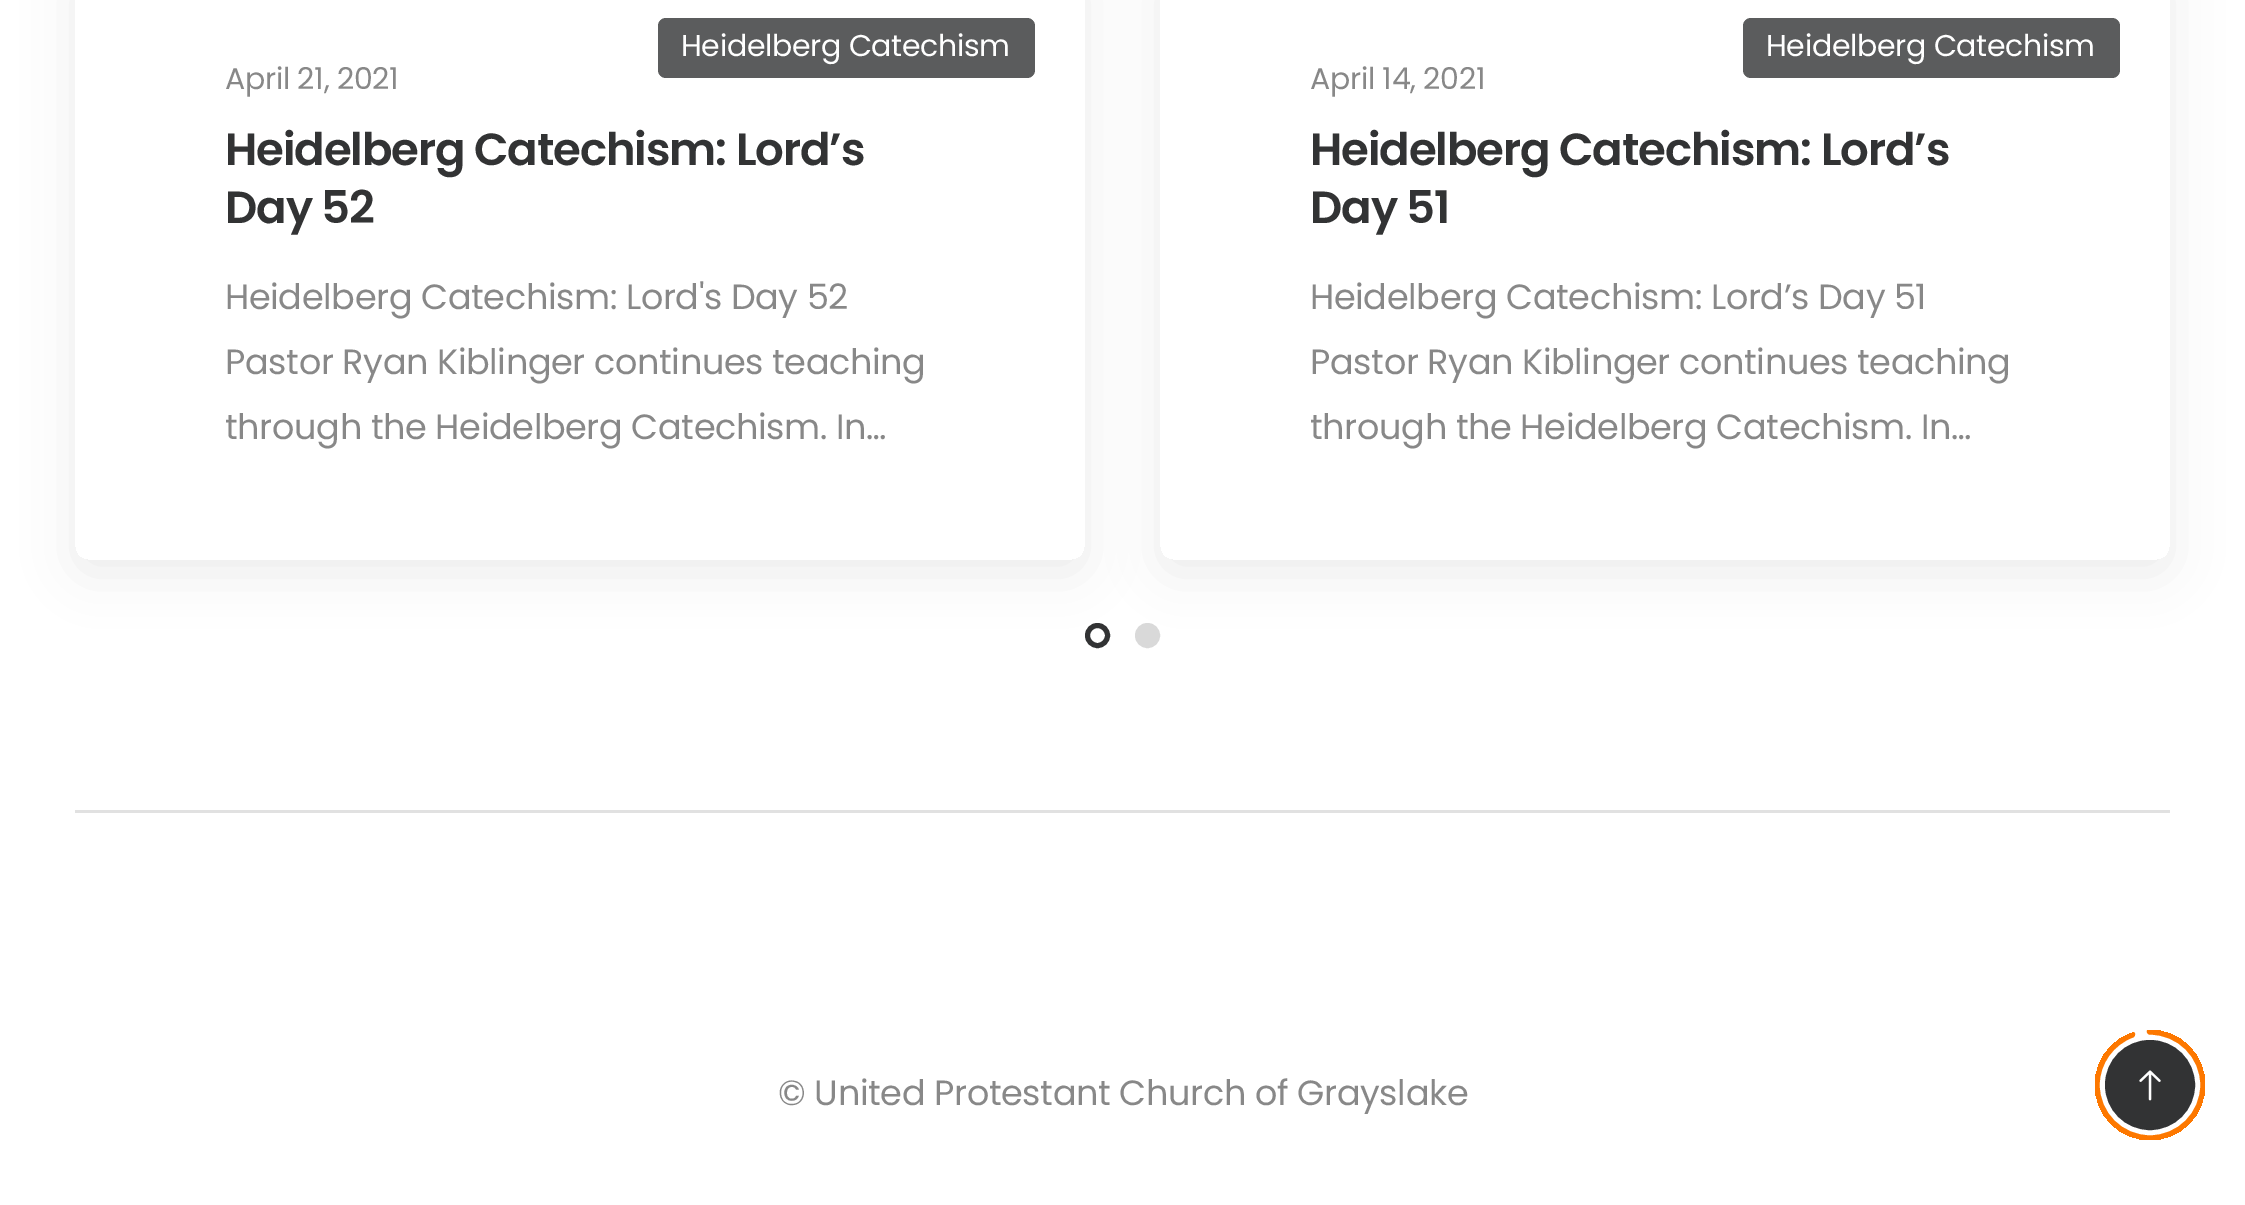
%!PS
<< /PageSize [2245 1205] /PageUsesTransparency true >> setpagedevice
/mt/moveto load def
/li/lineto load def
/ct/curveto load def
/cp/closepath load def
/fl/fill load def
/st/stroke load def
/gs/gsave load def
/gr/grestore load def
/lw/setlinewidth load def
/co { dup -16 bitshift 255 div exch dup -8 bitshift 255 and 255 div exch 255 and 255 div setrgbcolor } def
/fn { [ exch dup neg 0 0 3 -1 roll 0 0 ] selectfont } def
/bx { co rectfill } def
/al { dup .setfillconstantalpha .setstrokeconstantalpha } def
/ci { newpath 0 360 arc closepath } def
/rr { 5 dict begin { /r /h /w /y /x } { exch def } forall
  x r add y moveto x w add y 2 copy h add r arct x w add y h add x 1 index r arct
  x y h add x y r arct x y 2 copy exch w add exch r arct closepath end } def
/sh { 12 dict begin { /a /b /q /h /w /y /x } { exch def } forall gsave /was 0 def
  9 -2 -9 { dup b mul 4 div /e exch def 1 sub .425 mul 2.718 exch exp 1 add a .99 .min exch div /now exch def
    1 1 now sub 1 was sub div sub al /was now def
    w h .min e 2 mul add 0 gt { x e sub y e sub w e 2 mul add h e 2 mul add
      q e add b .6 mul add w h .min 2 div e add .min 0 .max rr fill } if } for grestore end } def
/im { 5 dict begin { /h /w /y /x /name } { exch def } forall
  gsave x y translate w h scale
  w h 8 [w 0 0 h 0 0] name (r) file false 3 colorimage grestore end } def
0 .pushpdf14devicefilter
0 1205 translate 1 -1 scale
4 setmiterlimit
0 0 2245 1205 16#FFFFFF bx
gs
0 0 mt 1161 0 li 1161 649 li 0 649 li cp 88 -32 mt 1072 -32 li 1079 -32 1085 -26 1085 -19 ct 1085 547 li 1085 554 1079 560 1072 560 ct 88 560 li 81 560 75 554 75 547 ct 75 -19 li 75 -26 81 -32 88 -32 ct cp eoclip newpath
16#000000 co
75 -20 1010 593 13 25 .07 sh
gr
16#5B5C5D co
658 18 377 60 8 rr fl
gs
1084 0 mt 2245 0 li 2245 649 li 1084 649 li cp 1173 -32 mt 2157 -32 li 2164 -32 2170 -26 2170 -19 ct 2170 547 li 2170 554 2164 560 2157 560 ct 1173 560 li 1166 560 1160 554 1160 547 ct 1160 -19 li 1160 -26 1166 -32 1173 -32 ct cp eoclip newpath
16#000000 co
1160 -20 1010 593 13 25 .07 sh
gr
1743 18 377 60 8 rr fl
16#323334 co
5 lw
1097.5 635.5 10 ci st
16#D9D9D9 co
1147.5 635.5 10 ci gs fl gr
st
75 810 2095 3 16#E1E1E1 bx
gs
2095 1030 110 110 55 rr clip newpath
16#FD7800 co
6.3 lw
1 setlinecap
2150 1031.5 mt 2179.5 1031.5 2203.5 1055.5 2203.5 1085 ct 2203.5 1114.5 2179.5 1138.5 2150 1138.5 ct 2120.5 1138.5 2096.5 1114.5 2096.5 1085 ct 2096.5 1062 2111.5 1042 2132 1034.5 ct st
gr
16#323334 co
2150 1085 42.5 ci gs fl gr
st
(media/1.raw) 2139 1070 22 31 im
/Poppins-Regular 30 fn
16#FFFFFF co
681 56 mt -.35 0 (Heidelberg Catechism) ashow
16#888888 co
225 89 mt -.35 0 (April 21, 2021) ashow
/Poppins-SemiBold 45 fn
16#323334 co
225 165 mt -1.1 0 (Heidelberg Catechism: Lord’s) ashow
225 223 mt -1.1 0 (Day 52) ashow
/Poppins-Regular 35 fn
16#888888 co
225 309 mt -.35 0 (Heidelberg Catechism: Lord's Day 52) ashow
225 374 mt -.35 0 (Pastor Ryan Kiblinger continues teaching) ashow
225 439 mt -.35 0 (through the Heidelberg Catechism. In…) ashow
/Poppins-Regular 30 fn
16#FFFFFF co
1766 56 mt -.35 0 (Heidelberg Catechism) ashow
16#888888 co
1310 89 mt -.35 0 (April 14, 2021) ashow
/Poppins-SemiBold 45 fn
16#323334 co
1310 165 mt -1.1 0 (Heidelberg Catechism: Lord’s) ashow
1310 223 mt -1.1 0 (Day 51) ashow
/Poppins-Regular 35 fn
16#888888 co
1310 309 mt -.35 0 (Heidelberg Catechism: Lord’s Day 51) ashow
1310 374 mt -.35 0 (Pastor Ryan Kiblinger continues teaching) ashow
1310 439 mt -.35 0 (through the Heidelberg Catechism. In…) ashow
778 1105 mt -.35 0 (© United Protestant Church of Grayslake) ashow
.poppdf14devicefilter showpage
